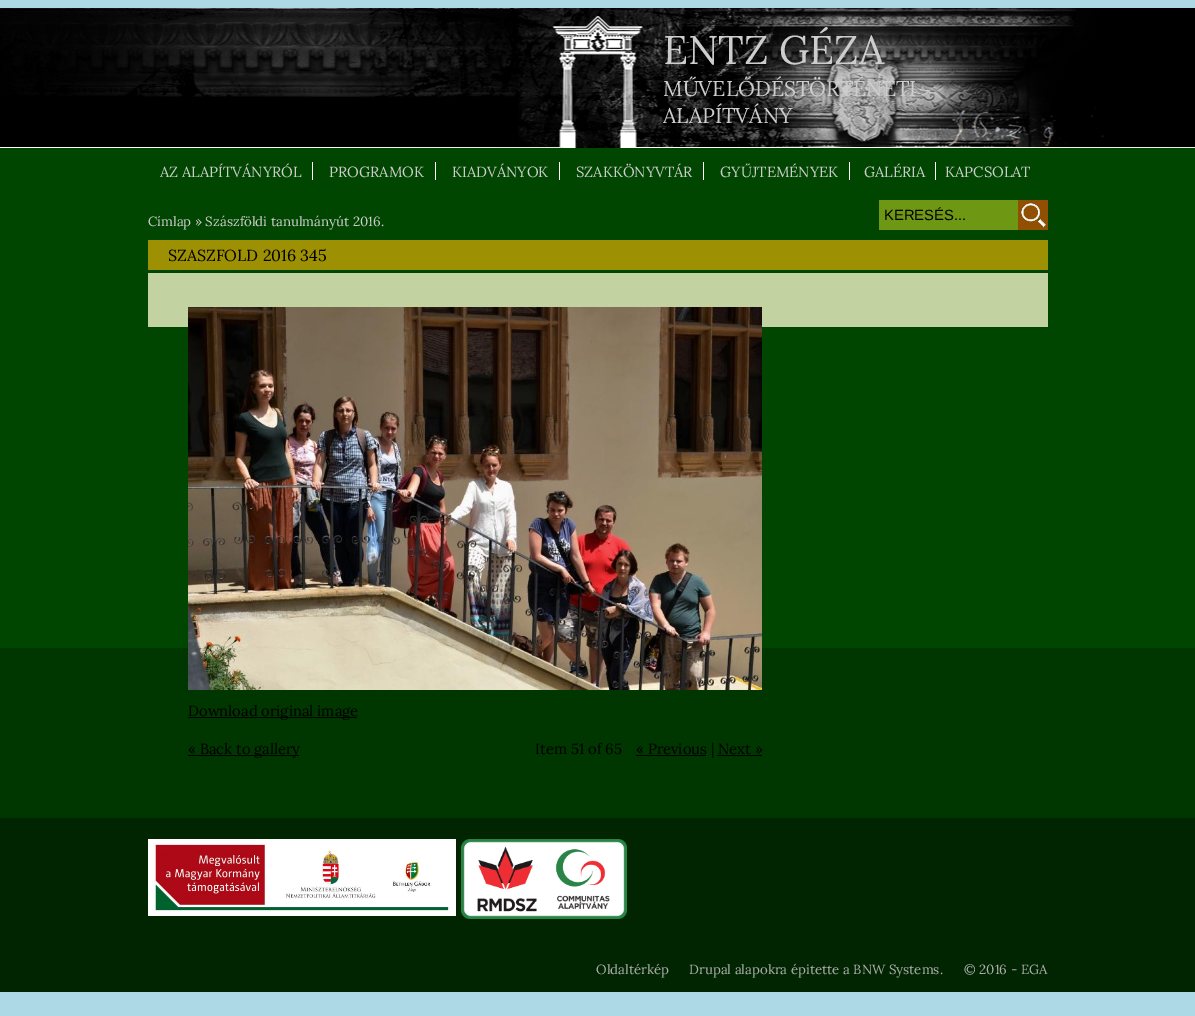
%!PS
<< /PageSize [1195 1016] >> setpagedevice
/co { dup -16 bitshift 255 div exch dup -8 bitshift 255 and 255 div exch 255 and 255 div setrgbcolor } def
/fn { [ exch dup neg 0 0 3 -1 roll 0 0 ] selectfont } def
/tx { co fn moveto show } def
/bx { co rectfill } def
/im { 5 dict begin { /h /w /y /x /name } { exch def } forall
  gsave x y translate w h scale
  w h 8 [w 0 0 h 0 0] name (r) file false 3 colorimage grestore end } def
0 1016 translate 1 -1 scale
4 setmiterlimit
0 0 1195 1016 16#ADD8E6 bx
0 648 1195 170 16#003600 bx
(media/1.raw) 0 8 1195 140 im
0 148 1195 500 16#004500 bx
(media/2.raw) 312 162 1 18 im
(media/2.raw) 435 162 1 18 im
(media/2.raw) 559 162 1 18 im
(media/2.raw) 703 162 1 18 im
(media/2.raw) 849 162 1 18 im
(media/2.raw) 935 162 1 18 im
879 200 139 30 16#6E9713 bx
(media/3.raw) 1018 200 30 30 im
148 240 900 30 16#9D9003 bx
148 273 900 54 16#C2D3A1 bx
(media/4.raw) 188 307 574 383 im
188 717 169 1 16#000000 bx
188 755 111 1 16#000000 bx
636 755 70 1 16#000000 bx
717 755 45 1 16#000000 bx
0 818 1195 174 16#002500 bx
(media/5.raw) 148 839 308 77 im
(media/6.raw) 461 839 166 80 im
(ENTZ GÉZA) 663 64 /Lora-Regular 40 16#CDCDCD tx
(MŰVELŐDÉSTÖRTÉNETI) 663 96 /Lora-Regular 21.25 16#CDCDCD tx
(ALAPÍTVÁNY) 663 123 /Lora-Regular 21.25 16#CDCDCD tx
(AZ ALAPÍTVÁNYRÓL) 160 177 /Lora-Regular 14.75 16#CDCDCD tx
(PROGRAMOK) 329 177 /Lora-Regular 14.75 16#CDCDCD tx
(KIADVÁNYOK) 452 177 /Lora-Regular 14.75 16#CDCDCD tx
(SZAKKÖNYVTÁR) 576 177 /Lora-Regular 14.75 16#CDCDCD tx
(GYŰJTEMÉNYEK) 720 177 /Lora-Regular 14.75 16#CDCDCD tx
(GALÉRIA) 864 177 /Lora-Regular 14.75 16#CDCDCD tx
(KAPCSOLAT) 945 177 /Lora-Regular 14.75 16#CDCDCD tx
(Címlap » Szászföldi tanulmányút 2016.) 148 226 /Lora-Regular 13.3 16#CDCDCD tx
(KERESÉS...) 884 220 /LiberationSans-Regular 14.75 16#000000 tx
(SZASZFOLD 2016 345) 168 261 /Lora-Regular 16 16#000000 tx
(Download original image) 188 716 /Lora-Regular 14.75 16#000000 tx
(« Back to gallery) 188 754 /Lora-Regular 14.75 16#000000 tx
(Item 51 of 65) 535 754 /Lora-Regular 14.75 16#000000 tx
(« Previous | Next ») 636 754 /Lora-Regular 14.75 16#000000 tx
(Oldaltérkép) 596 974 /Lora-Regular 13.3 16#ADADAD tx
(Drupal alapokra épitette a BNW Systems.) 689 974 /Lora-Regular 13.3 16#ADADAD tx
(© 2016 - EGA) 964 974 /Lora-Regular 13.3 16#ADADAD tx
showpage
